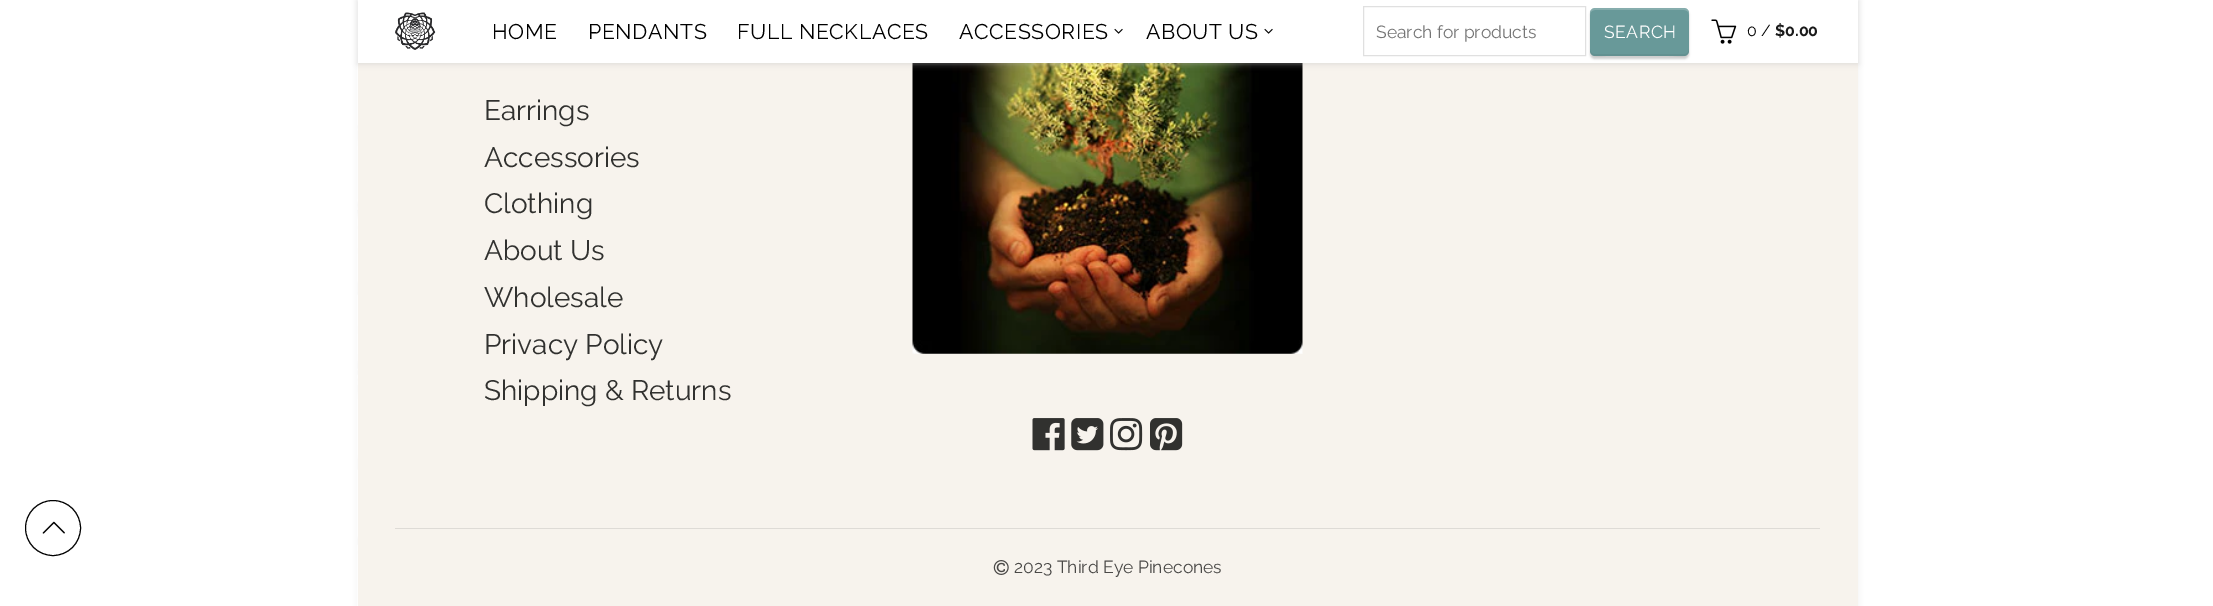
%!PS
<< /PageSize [2213 606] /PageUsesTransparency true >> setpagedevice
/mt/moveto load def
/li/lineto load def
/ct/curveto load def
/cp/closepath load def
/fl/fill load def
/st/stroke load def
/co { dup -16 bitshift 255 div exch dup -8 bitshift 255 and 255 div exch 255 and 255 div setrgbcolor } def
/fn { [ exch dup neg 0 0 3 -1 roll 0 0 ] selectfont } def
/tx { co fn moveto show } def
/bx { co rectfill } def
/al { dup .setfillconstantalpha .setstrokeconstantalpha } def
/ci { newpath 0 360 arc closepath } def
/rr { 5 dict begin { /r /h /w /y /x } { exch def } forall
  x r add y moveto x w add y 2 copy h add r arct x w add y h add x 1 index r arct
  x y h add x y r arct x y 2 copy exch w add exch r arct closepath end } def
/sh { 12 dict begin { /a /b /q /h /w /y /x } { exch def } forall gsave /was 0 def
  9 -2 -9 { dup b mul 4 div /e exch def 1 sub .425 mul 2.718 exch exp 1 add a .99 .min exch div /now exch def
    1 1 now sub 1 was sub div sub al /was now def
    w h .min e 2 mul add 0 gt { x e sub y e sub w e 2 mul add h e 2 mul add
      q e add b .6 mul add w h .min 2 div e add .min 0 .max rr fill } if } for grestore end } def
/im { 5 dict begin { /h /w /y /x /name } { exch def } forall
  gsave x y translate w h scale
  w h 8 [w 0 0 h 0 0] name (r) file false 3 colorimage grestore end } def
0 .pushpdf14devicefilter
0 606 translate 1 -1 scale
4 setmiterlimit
0 0 2213 606 16#FFFFFF bx
16#000000 co
53 528 27.5 ci st
(media/1.raw) 42 521 23 13 im
16#BEBEBE co
358 -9 1500 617 0 3 .26 sh
(media/2.raw) 357 0 1 606 im
358 63 1500 543 16#F7F3ED bx
(media/6.raw) 912 63 391 291 im
16#BEBEBE co
358 1 1500 63 0 3 .5 sh
358 0 1500 63 16#FFFFFF bx
(media/3.raw) 395 12 41 38 im
(media/4.raw) 1114 28 9 6 im
(media/4.raw) 1264 28 9 6 im
16#E0E0E0 co
1363.5 6.5 222 49 rectstroke
16#000000 co
1590 10 99 49 5 1 .19 sh
16#689999 co
1590 8 99 48 5 rr fl
0.05 al
16#000000 co
1590 49 mt 1590 60 1601 56 1610 56 ct 1669 56 li 1678 56 1689 60 1689 49 ct 1689 52 1687 54 1684 54 ct 1595 54 li 1592 54 1590 52 1590 49 ct cp fl
0.2 al
16#FFFFFF co
1595 10 mt 1684 10 li 1687 10 1689 12 1689 15 ct 1689 4 1678 8 1669 8 ct 1610 8 li 1601 8 1590 4 1590 15 ct 1590 12 1592 10 1595 10 ct cp fl
1 al
(media/5.raw) 1711 19 26 25 im
(media/7.raw) 1032 418 33 33 im
(media/8.raw) 1071 418 33 33 im
(media/9.raw) 1110 418 33 33 im
(media/10.raw) 1150 418 33 33 im
395 528 1425 1 16#DEDBD6 bx
(media/11.raw) 993 560 16 15 im
/Raleway-Thin 21.25 fn
16#000000 co
492 39 mt .6 0 (HOME) ashow
588 39 mt .6 0 (PENDANTS) ashow
737 39 mt .6 0 (FULL NECKLACES) ashow
959 39 mt .6 0 (ACCESSORIES) ashow
1146 39 mt .6 0 (ABOUT US) ashow
(Search for products) 1376 38 /Raleway-Thin 17.5 16#757575 tx
16#FFFFFF co
1604 38 mt .5 0 (SEARCH) ashow
(0 /) 1747 36 /Raleway-Thin 16 16#000000 tx
($0.00) 1775 36 /Raleway-Bold 16 16#1A1A1A tx
(Earrings) 484 120 /Raleway-Thin 28 16#31312F tx
(Accessories) 484 167 /Raleway-Thin 28 16#31312F tx
(Clothing) 484 213 /Raleway-Thin 28 16#31312F tx
(About Us) 484 260 /Raleway-Thin 28 16#31312F tx
(Wholesale) 484 307 /Raleway-Thin 28 16#31312F tx
(Privacy Policy) 484 354 /Raleway-Thin 28 16#31312F tx
(Shipping & Returns) 484 400 /Raleway-Thin 28 16#31312F tx
(2023 Third Eye Pinecones) 1014 573 /Raleway-Thin 17.5 16#4A4947 tx
.poppdf14devicefilter showpage
